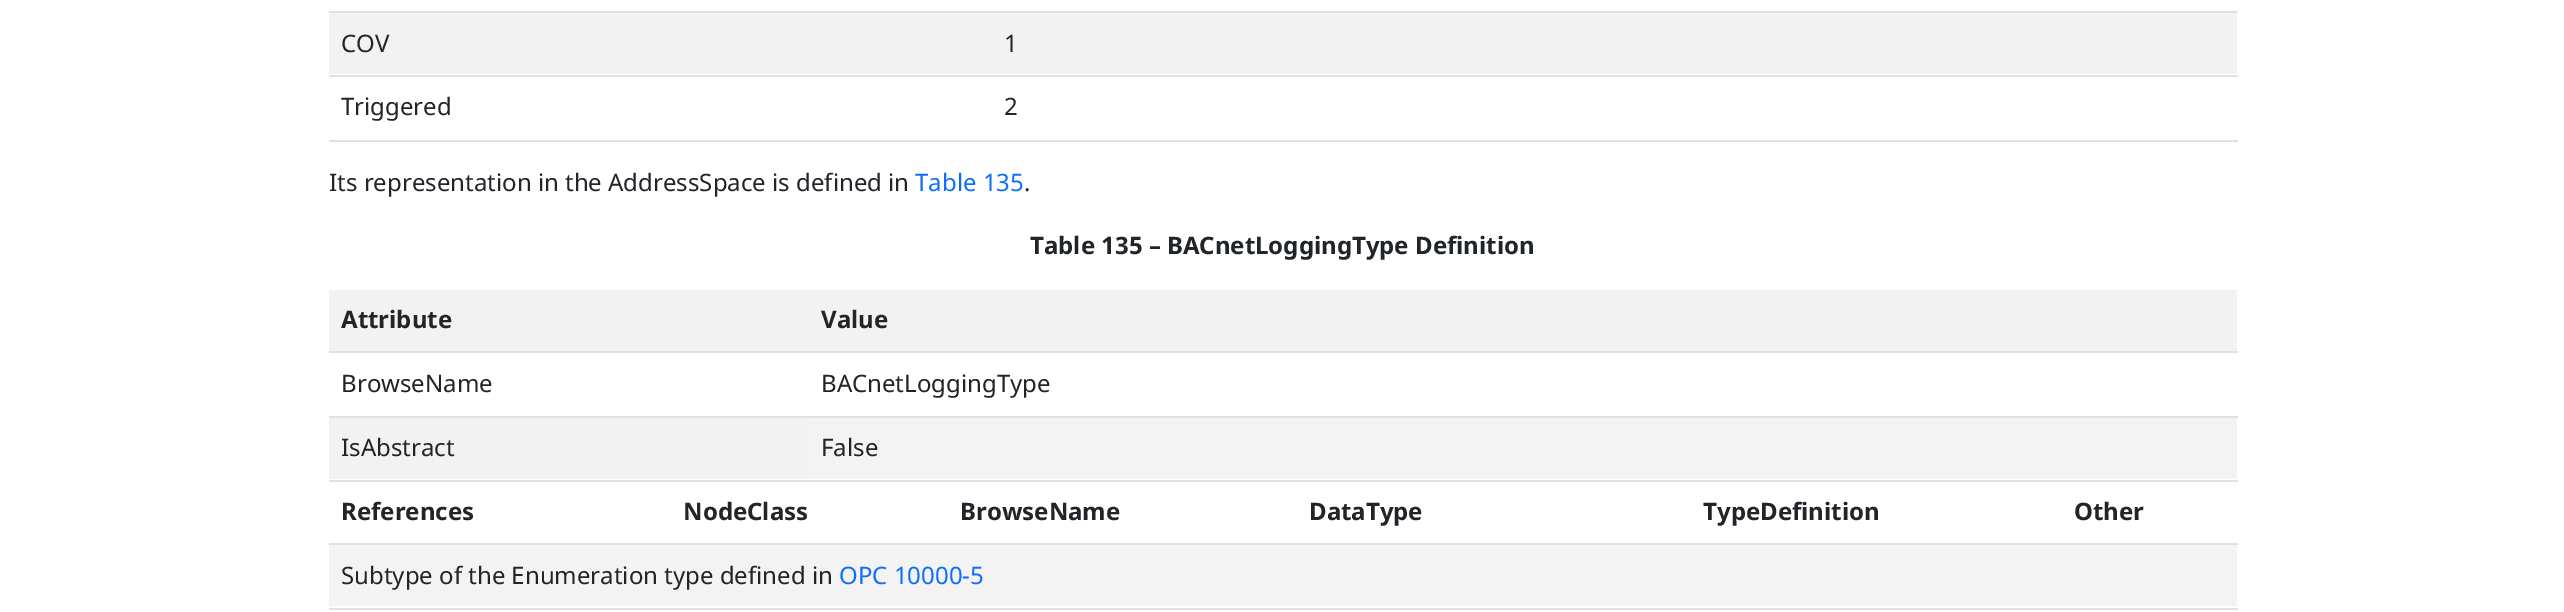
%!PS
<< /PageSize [2564 612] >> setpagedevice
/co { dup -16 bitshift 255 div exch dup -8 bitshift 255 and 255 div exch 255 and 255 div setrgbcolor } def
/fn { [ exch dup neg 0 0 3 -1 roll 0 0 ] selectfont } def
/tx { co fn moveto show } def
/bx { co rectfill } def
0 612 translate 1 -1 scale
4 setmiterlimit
0 0 2564 612 16#FFFFFF bx
329 11 1909 2 16#DEE2E6 bx
329 13 1908 61 16#F2F2F2 bx
329 75 1909 2 16#DEE2E6 bx
329 140 1909 2 16#DEE2E6 bx
329 290 1908 61 16#F2F2F2 bx
329 351 1909 2 16#DEE2E6 bx
329 416 1909 2 16#DEE2E6 bx
329 418 481 61 16#F2F2F2 bx
810 418 1427 61 16#F3F3F3 bx
329 480 1909 2 16#DEE2E6 bx
329 543 1909 2 16#DEE2E6 bx
329 545 1908 61 16#F3F3F3 bx
329 608 1909 2 16#DEE2E6 bx
(COV) 341 52 /NotoSans-Regular 24 16#212529 tx
(1) 1004 52 /NotoSans-Regular 24 16#212529 tx
(Triggered) 341 115 /NotoSans-Regular 24 16#212529 tx
(2) 1004 115 /NotoSans-Regular 24 16#212529 tx
(Its representation in the AddressSpace is defined in) 329 191 /NotoSans-Regular 24 16#212529 tx
(Table 135) 915 191 /NotoSans-Regular 24 16#0D6EFD tx
(.) 1024 191 /NotoSans-Regular 24 16#212529 tx
(Table 135 – BACnetLoggingType Definition) 1030 254 /NotoSans-Bold 24 16#212529 tx
(Attribute) 341 328 /NotoSans-Bold 24 16#212529 tx
(Value) 821 328 /NotoSans-Bold 24 16#212529 tx
(BrowseName) 341 392 /NotoSans-Regular 24 16#212529 tx
(BACnetLoggingType) 821 392 /NotoSans-Regular 24 16#212529 tx
(IsAbstract) 341 456 /NotoSans-Regular 24 16#212529 tx
(False) 821 456 /NotoSans-Regular 24 16#212529 tx
(References) 341 520 /NotoSans-Bold 24 16#212529 tx
(NodeClass) 683 520 /NotoSans-Bold 24 16#212529 tx
(BrowseName) 960 520 /NotoSans-Bold 24 16#212529 tx
(DataType) 1309 520 /NotoSans-Bold 24 16#212529 tx
(TypeDefinition) 1703 520 /NotoSans-Bold 24 16#212529 tx
(Other) 2074 520 /NotoSans-Bold 24 16#212529 tx
(Subtype of the Enumeration type defined in) 341 584 /NotoSans-Regular 24 16#212529 tx
(OPC 10000-5) 839 584 /NotoSans-Regular 24 16#0D6EFD tx
showpage
